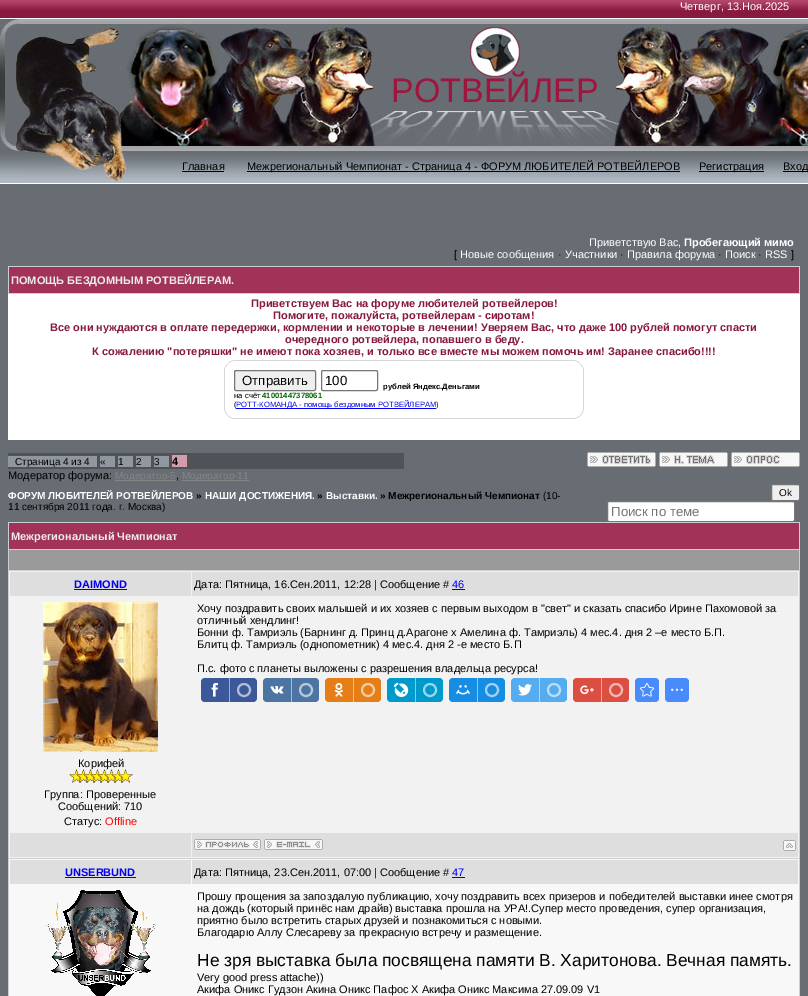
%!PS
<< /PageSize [808 996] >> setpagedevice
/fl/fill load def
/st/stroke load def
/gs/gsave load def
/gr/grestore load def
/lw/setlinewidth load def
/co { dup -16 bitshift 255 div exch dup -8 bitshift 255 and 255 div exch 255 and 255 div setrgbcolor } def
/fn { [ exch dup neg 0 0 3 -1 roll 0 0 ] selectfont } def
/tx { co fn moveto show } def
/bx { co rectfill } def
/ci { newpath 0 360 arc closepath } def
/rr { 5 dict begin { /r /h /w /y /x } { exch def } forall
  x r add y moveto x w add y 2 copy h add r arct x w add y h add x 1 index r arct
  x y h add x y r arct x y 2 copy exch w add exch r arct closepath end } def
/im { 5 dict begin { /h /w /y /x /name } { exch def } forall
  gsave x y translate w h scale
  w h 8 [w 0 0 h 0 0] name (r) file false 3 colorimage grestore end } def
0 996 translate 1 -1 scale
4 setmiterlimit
0 0 808 996 16#686D73 bx
(media/1.raw) 0 0 808 184 im
(media/2.raw) 0 19 310 132 im
(media/3.raw) 310 19 370 132 im
(media/4.raw) 680 19 128 132 im
(media/5.raw) 24 151 104 32 im
182 171 42 1 16#000000 bx
247 171 433 1 16#000000 bx
699 171 65 1 16#000000 bx
783 171 25 1 16#000000 bx
8 266 792 28 16#CBCED2 bx
9 267 790 26 16#A03357 bx
8 294 792 146 16#FFFFFF bx
(media/6.raw) 574 360 10 50 im
(media/7.raw) 234 409 350 10 im
(media/8.raw) 224 370 10 49 im
(media/9.raw) 224 360 350 10 im
16#EFEFEF co
234.5 370.5 81 20 1.5 rr gs fl gr
16#767676 co
st
321.5 370.5 56 20 1.5 rr st
8 453 396 16 16#4F5357 bx
8 456 89 11 16#91979F bx
100 456 15 11 16#91979F bx
118 456 15 11 16#91979F bx
136 456 15 11 16#91979F bx
154 456 15 11 16#91979F bx
172 455 15 12 16#D39CAA bx
(media/10.raw) 587 452 69 15 im
(media/11.raw) 659 452 69 15 im
(media/12.raw) 731 452 69 15 im
115 480 61 1 16#858585 bx
182 480 67 1 16#858585 bx
16#EFEFEF co
771.5 484.5 28 16 1.5 rr gs fl gr
16#767676 co
st
16#FFFFFF co
607.5 501.5 187 20 1.5 rr gs fl gr
16#767676 co
st
8 522 792 474 16#CBCED2 bx
9 523 790 26 16#A03357 bx
9 550 790 20 16#9A9A9A bx
9 571 790 287 16#F2F2F2 bx
10 572 181 24 16#DEDEDE bx
74 589 53 1 16#0000EE bx
192 572 606 24 16#DEDEDE bx
452 589 13 1 16#0000EE bx
16#3B5998 co
201 678 56 24 4 rr fl
(media/13.raw) 211 683 8 14 im
229 678 1 24 16#9DACCC bx
16#B1BDD6 co
2 lw
244 690 6 ci st
16#4D75A3 co
263 678 56 24 4 rr fl
(media/14.raw) 270 686 14 8 im
291 678 1 24 16#A6BAD1 bx
16#B8C8DA co
306 690 6 ci st
16#E67E17 co
325 678 56 24 4 rr fl
(media/15.raw) 334 683 9 14 im
353 678 1 24 16#F3BF8B bx
16#F5CBA2 co
368 690 6 ci st
16#0099CC co
387 678 56 24 4 rr fl
(media/16.raw) 393 682 16 15 im
415 678 1 24 16#80CCE6 bx
16#99D6EB co
430 690 6 ci st
16#168DE2 co
449 678 56 24 4 rr fl
(media/17.raw) 456 685 14 10 im
477 678 1 24 16#8BC6F1 bx
16#A2D1F3 co
492 690 6 ci st
16#55ACEE co
511 678 56 24 4 rr fl
(media/18.raw) 518 684 14 12 im
539 678 1 24 16#AAD6F7 bx
16#BBDEF8 co
554 690 6 ci st
16#DC4E41 co
573 678 56 24 4 rr fl
(media/19.raw) 580 685 14 10 im
601 678 1 24 16#EEA7A0 bx
16#F1B8B3 co
616 690 6 ci st
16#498BFA co
635 678 24 24 4 rr fl
(media/20.raw) 639 683 16 14 im
665 678 24 24 4 rr fl
(media/21.raw) 671 688 12 3 im
(media/22.raw) 43 602 115 150 im
10 833 181 24 16#DEDEDE bx
192 833 606 24 16#DEDEDE bx
(media/24.raw) 194 839 67 11 im
(media/25.raw) 264 839 59 11 im
(media/26.raw) 783 840 13 11 im
9 859 790 137 16#F8F8F8 bx
10 860 181 24 16#DEDEDE bx
65 877 71 1 16#0000EE bx
192 860 606 24 16#DEDEDE bx
452 877 13 1 16#0000EE bx
(media/27.raw) 46 890 110 106 im
(Четверг, 13.Ноя.2025) 680 10 /LiberationSans-Regular 11 16#FFFFFF tx
(РОТВЕЙЛЕР) 391 102 /LiberationSans-Regular 34 16#A0153E tx
(Главная) 182 170 /LiberationSans-Regular 11 16#000000 tx
(Межрегиональный Чемпионат - Страница 4 - ФОРУМ ЛЮБИТЕЛЕЙ РОТВЕЙЛЕРОВ) 247 170 /LiberationSans-Regular 11 16#000000 tx
(Регистрация) 699 170 /LiberationSans-Regular 11 16#000000 tx
(Вход) 783 170 /LiberationSans-Regular 11 16#000000 tx
(Приветствую Вас,) 589 246 /LiberationSans-Regular 11 16#FFFFFF tx
(Пробегающий мимо) 684 246 /LiberationSans-Bold 11 16#FFFFFF tx
([) 454 258 /LiberationSans-Regular 11 16#000000 tx
(Новые сообщения) 460 258 /LiberationSans-Regular 11 16#FFFFFF tx
(·) 558 258 /LiberationSans-Regular 11 16#000000 tx
(Участники) 565 258 /LiberationSans-Regular 11 16#FFFFFF tx
(·) 620 258 /LiberationSans-Regular 11 16#000000 tx
(Правила форума) 627 258 /LiberationSans-Regular 11 16#FFFFFF tx
(·) 718 258 /LiberationSans-Regular 11 16#000000 tx
(Поиск) 725 258 /LiberationSans-Regular 11 16#FFFFFF tx
(·) 758 258 /LiberationSans-Regular 11 16#000000 tx
(RSS) 765 258 /LiberationSans-Regular 11 16#FFFFFF tx
(]) 791 258 /LiberationSans-Regular 11 16#000000 tx
(ПОМОЩЬ БЕЗДОМНЫМ РОТВЕЙЛЕРАМ.) 11 284 /LiberationSans-Bold 11 16#EBEBEB tx
(Приветствуем Вас на форуме любителей ротвейлеров!) 251 307 /LiberationSans-Bold 11 16#86193D tx
(Помогите, пожалуйста, ротвейлерам - сиротам!) 273 319 /LiberationSans-Bold 11 16#86193D tx
(Все они нуждаются в оплате передержки, кормлении и некоторые в лечении! Уверяем Вас, что даже 100 рублей помогут спасти) 50 331 /LiberationSans-Bold 11 16#86193D tx
(очередного ротвейлера, попавшего в беду.) 285 343 /LiberationSans-Bold 11 16#86193D tx
(К сожалению "потеряшки" не имеют пока хозяев, и только все вместе мы можем помочь им! Заранее cпасибо!!!!) 92 355 /LiberationSans-Bold 11 16#86193D tx
(Отправить) 242 385 /LiberationSans-Regular 13.25 16#000000 tx
(100) 325 385 /LiberationSans-Regular 13.25 16#000000 tx
(рублей Яндекс.Деньгами) 383 389 /LiberationSans-Bold 7.7 16#000000 tx
(на счёт) 234 398 /LiberationSans-Regular 7.7 16#000000 tx
(41001447378061) 262 398 /LiberationSans-Bold 7.7 16#006600 tx
(\() 234 407 /LiberationSans-Regular 7.7 16#000000 tx
236 408 200 1 16#0000EE bx
(РОТТ-КОМАНДА - помощь бездомным РОТВЕЙЛЕРАМ) 236 407 /LiberationSans-Regular 7.7 16#0000EE tx
(\)) 436 407 /LiberationSans-Regular 7.7 16#000000 tx
(Страница 4 из 4) 15 465 /LiberationSans-Regular 10 16#000000 tx
(«) 100 465 /LiberationSans-Regular 10 16#000000 tx
(1) 118 465 /LiberationSans-Regular 10 16#000000 tx
(2) 136 465 /LiberationSans-Regular 10 16#000000 tx
(3) 154 465 /LiberationSans-Regular 10 16#000000 tx
(4) 172 465 /LiberationSans-Bold 11 16#000000 tx
(Модератор форума:) 8 479 /LiberationSans-Regular 11 16#000000 tx
(Модератор-5) 115 479 /LiberationSans-Regular 10 16#858585 tx
(,) 176 479 /LiberationSans-Regular 11 16#000000 tx
(Модератор-11) 182 479 /LiberationSans-Regular 10 16#858585 tx
(ФОРУМ ЛЮБИТЕЛЕЙ РОТВЕЙЛЕРОВ) 8 499 /LiberationSans-Bold 10 16#FFFFFF tx
(») 196 499 /LiberationSans-Bold 10 16#000000 tx
(НАШИ ДОСТИЖЕНИЯ.) 205 499 /LiberationSans-Bold 10 16#FFFFFF tx
(») 317 499 /LiberationSans-Bold 10 16#000000 tx
(Выставки.) 326 499 /LiberationSans-Bold 10 16#FFFFFF tx
(» Межрегиональный Чемпионат) 380 499 /LiberationSans-Bold 10 16#000000 tx
(\(10-) 543 499 /LiberationSans-Regular 10 16#000000 tx
(11 сентября 2011 года. г. Москва\)) 8 510 /LiberationSans-Regular 10 16#000000 tx
(Ok) 779 496 /LiberationSans-Regular 10 16#000000 tx
(Поиск по теме) 611 516 /LiberationSans-Regular 13.25 16#757575 tx
(Межрегиональный Чемпионат) 11 540 /LiberationSans-Bold 11 16#EBEBEB tx
(DAIMOND) 74 588 /LiberationSans-Bold 11 16#0000EE tx
(Дата: Пятница, 16.Сен.2011, 12:28 | Сообщение #) 194 588 /LiberationSans-Regular 11 16#000000 tx
(46) 452 588 /LiberationSans-Regular 11 16#0000EE tx
(Хочу поздравить своих малышей и их хозяев с первым выходом в "свет" и сказать спасибо Ирине Пахомовой за) 197 612 /LiberationSans-Regular 11 16#000000 tx
(отличный хендлинг!) 197 624 /LiberationSans-Regular 11 16#000000 tx
(Бонни ф. Тамриэль \(Барнинг д. Принц д.Арагоне х Амелина ф. Тамриэль\) 4 мес.4. дня 2 –е место Б.П.) 197 636 /LiberationSans-Regular 11 16#000000 tx
(Блитц ф. Тамриэль \(однопометник\) 4 мес.4. дня 2 -е место Б.П) 197 648 /LiberationSans-Regular 11 16#000000 tx
(П.с. фото с планеты выложены с разрешения владельца ресурса!) 197 672 /LiberationSans-Regular 11 16#000000 tx
(Корифей) 78 767 /LiberationSans-Regular 11 16#000000 tx
(media/23.raw) 69 769 64 14 im
(Группа: Проверенные) 44 798 /LiberationSans-Regular 11 16#000000 tx
(Сообщений: 710) 58 810 /LiberationSans-Regular 11 16#000000 tx
(Статус:) 64 825 /LiberationSans-Regular 11 16#000000 tx
(Offline) 105 825 /LiberationSans-Regular 11 16#FF0000 tx
(UNSERBUND) 65 876 /LiberationSans-Bold 11 16#0000EE tx
(Дата: Пятница, 23.Сен.2011, 07:00 | Сообщение #) 194 876 /LiberationSans-Regular 11 16#000000 tx
(47) 452 876 /LiberationSans-Regular 11 16#0000EE tx
(Прошу прощения за запоздалую публикацию, хочу поздравить всех призеров и победителей выставки инее смотря) 197 900 /LiberationSans-Regular 11 16#000000 tx
(на дождь \(который принёс нам драйв\) выставка прошла на УРА!.Супер место проведения, супер организация,) 197 912 /LiberationSans-Regular 11 16#000000 tx
(приятно было встретить старых друзей и познакомиться с новыми.) 197 924 /LiberationSans-Regular 11 16#000000 tx
(Благодарю Аллу Слесареву за прекрасную встречу и размещение.) 197 936 /LiberationSans-Regular 11 16#000000 tx
(Не зря выставка была посвящена памяти В. Харитонова. Вечная память.) 197 966 /LiberationSans-Regular 17.35 16#000000 tx
(Very good press attache\)\)) 197 981 /LiberationSans-Regular 11 16#000000 tx
(Акифа Оникс Гудзон Акина Оникс Пафос Х Акифа Оникс Максима 27.09.09 V1) 197 993 /LiberationSans-Regular 11 16#000000 tx
showpage
